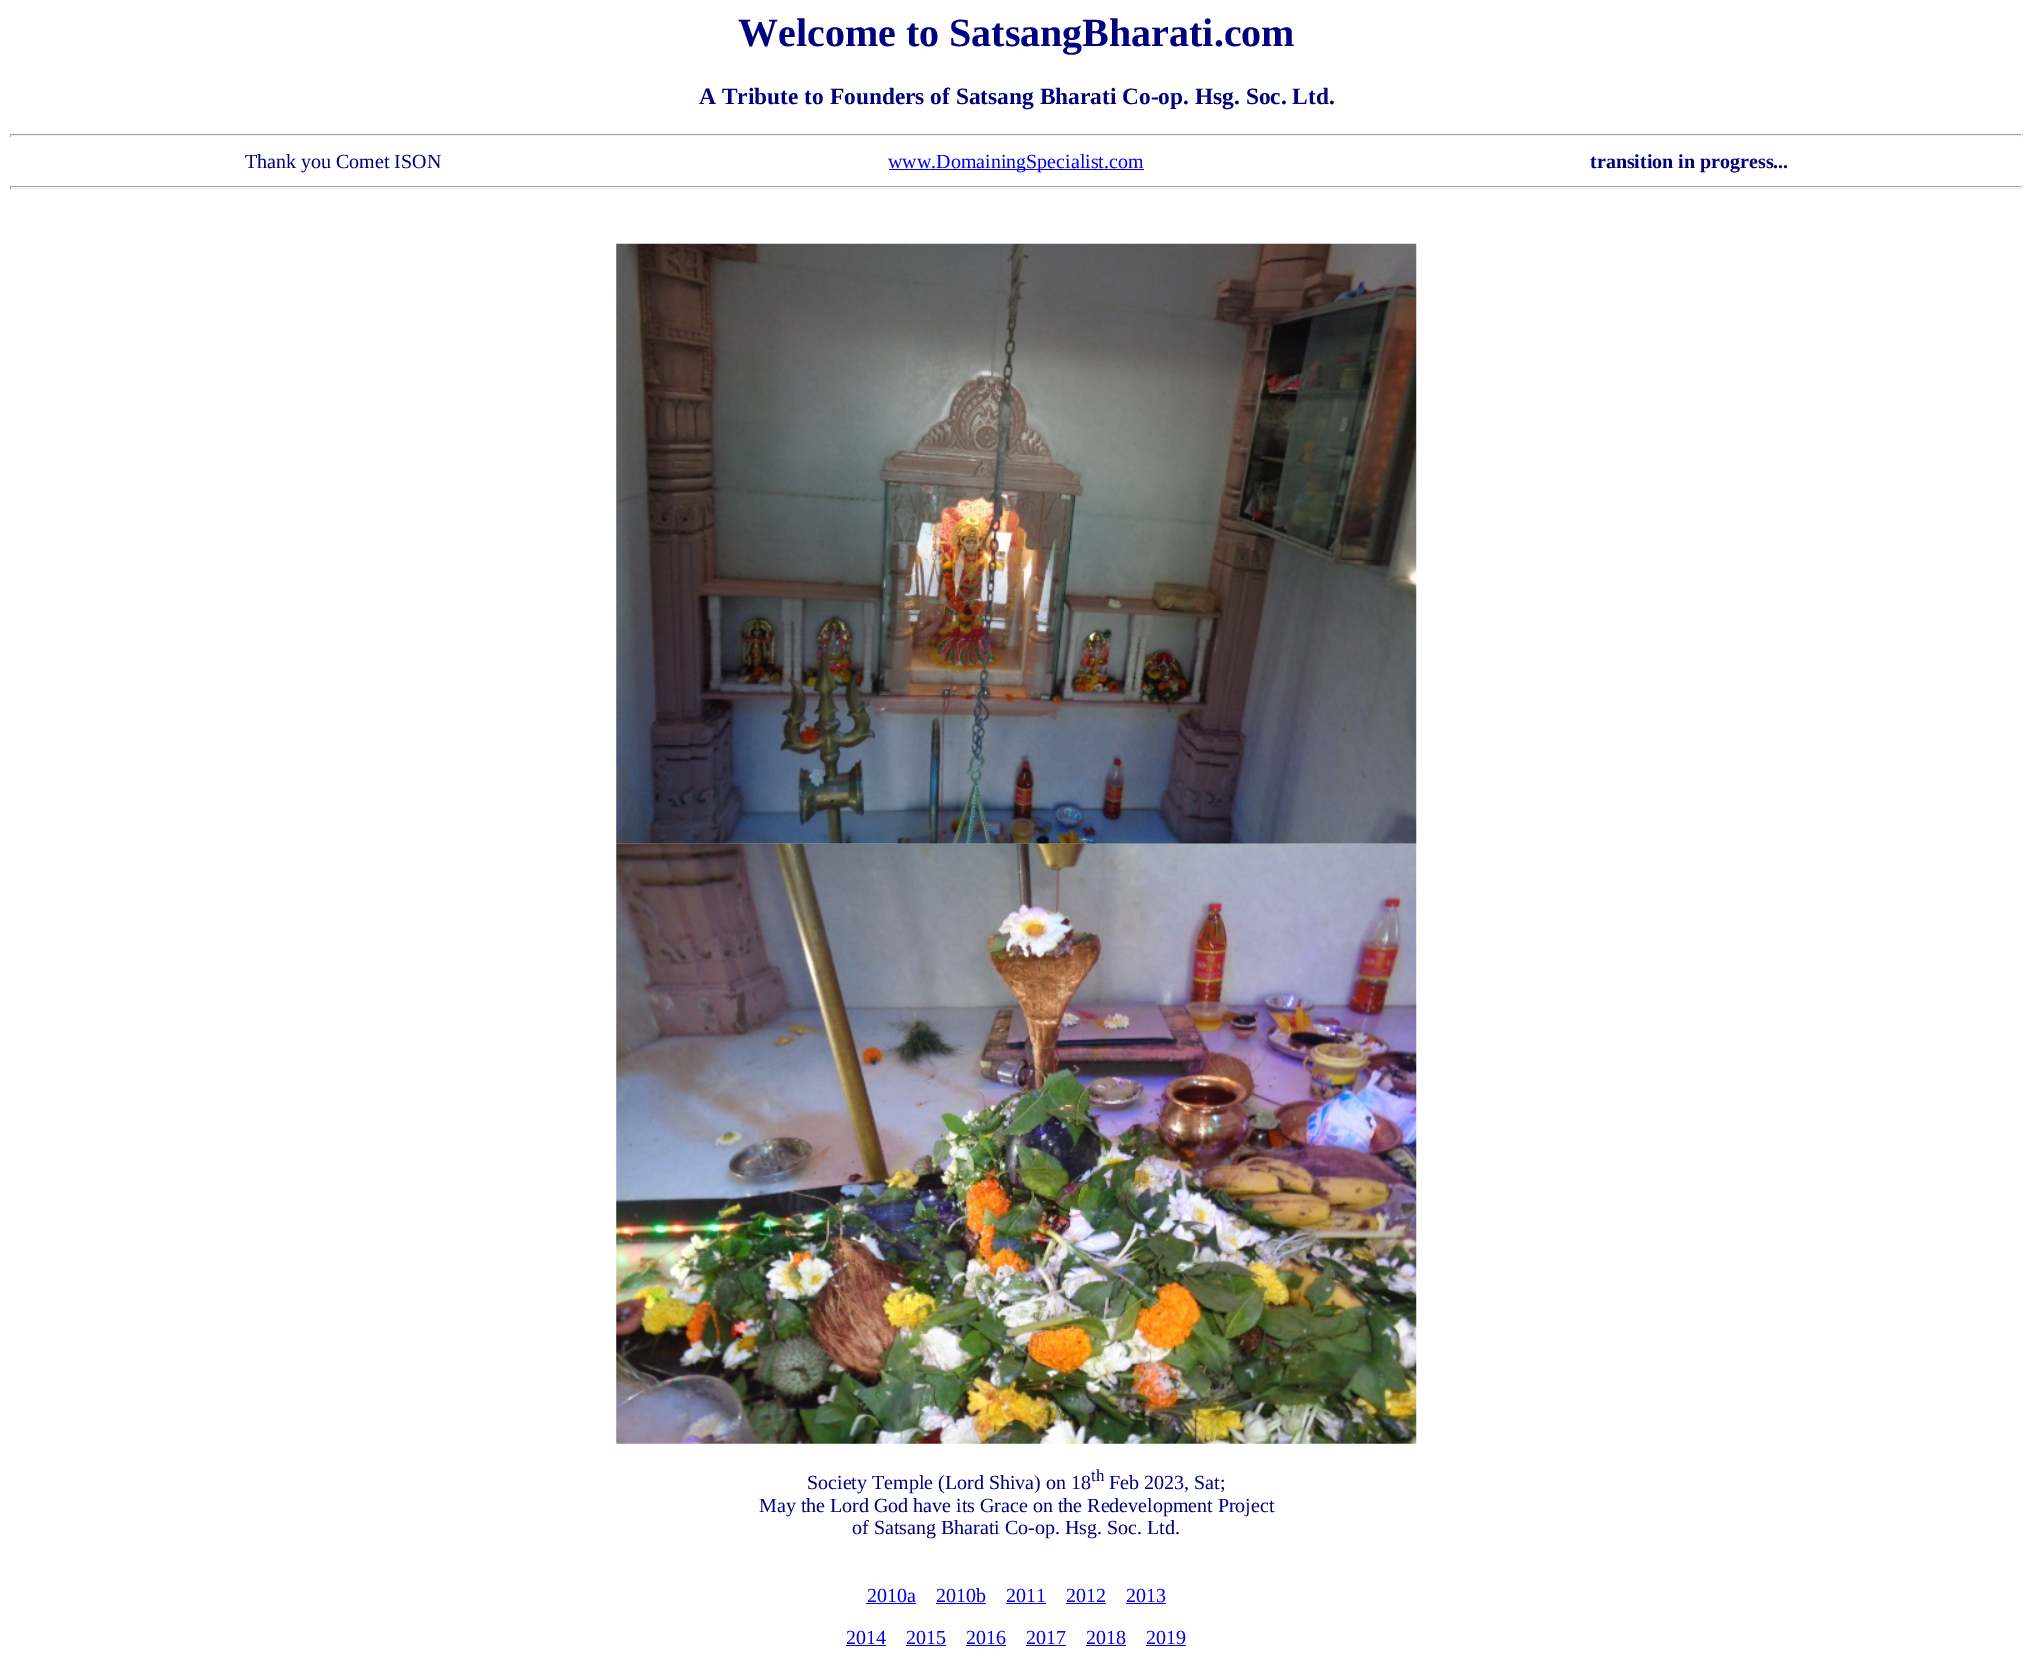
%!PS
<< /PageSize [2032 1680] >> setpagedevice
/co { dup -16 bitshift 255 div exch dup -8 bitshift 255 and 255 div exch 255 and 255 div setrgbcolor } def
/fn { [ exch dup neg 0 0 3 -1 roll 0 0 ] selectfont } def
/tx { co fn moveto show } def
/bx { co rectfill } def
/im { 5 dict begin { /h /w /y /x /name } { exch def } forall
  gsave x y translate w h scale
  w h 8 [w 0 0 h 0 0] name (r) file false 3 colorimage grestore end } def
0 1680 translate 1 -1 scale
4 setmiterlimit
0 0 2032 1680 16#FFFFFF bx
10 134 2013 1 16#9F9F9F bx
2021 134 1 3 16#EEEEEE bx
10 135 2013 1 16#EEEEEE bx
10 134 1 3 16#9F9F9F bx
889 169 255 1 16#0000EE bx
10 186 2013 1 16#9F9F9F bx
2021 186 1 3 16#EEEEEE bx
10 188 2013 1 16#EEEEEE bx
10 186 1 3 16#9F9F9F bx
(media/1.raw) 616 243 801 601 im
(media/2.raw) 616 843 801 601 im
866 1603 50 1 16#0000EE bx
936 1603 50 1 16#0000EE bx
1006 1603 40 1 16#0000EE bx
1066 1603 40 1 16#0000EE bx
1126 1603 40 1 16#0000EE bx
846 1645 40 1 16#0000EE bx
906 1645 40 1 16#0000EE bx
966 1645 40 1 16#0000EE bx
1026 1645 40 1 16#0000EE bx
1086 1645 40 1 16#0000EE bx
1146 1645 40 1 16#0000EE bx
(Welcome to SatsangBharati.com) 738 46 /LiberationSerif-Bold 40 16#000080 tx
(A Tribute to Founders of Satsang Bharati Co-op. Hsg. Soc. Ltd.) 699 104 /LiberationSerif-Bold 23.4 16#000080 tx
(Thank you Comet ISON) 245 168 /LiberationSerif-Regular 20 16#000080 tx
(www.DomainingSpecialist.com) 888 168 /LiberationSerif-Regular 20 16#0000EE tx
(transition in progress...) 1590 168 /LiberationSerif-Bold 20 16#000080 tx
(Society Temple \(Lord Shiva\) on 18) 807 1489 /LiberationSerif-Regular 20 16#000080 tx
(th) 1091 1481 /LiberationSerif-Regular 17 16#000080 tx
(Feb 2023, Sat;) 1109 1489 /LiberationSerif-Regular 20 16#000080 tx
(May the Lord God have its Grace on the Redevelopment Project) 759 1512 /LiberationSerif-Regular 20 16#000080 tx
(of Satsang Bharati Co-op. Hsg. Soc. Ltd.) 852 1534 /LiberationSerif-Regular 20 16#000080 tx
(2010a) 867 1602 /LiberationSerif-Regular 20 16#0000EE tx
(2010b) 936 1602 /LiberationSerif-Regular 20 16#0000EE tx
(2011) 1006 1602 /LiberationSerif-Regular 20 16#0000EE tx
(2012) 1066 1602 /LiberationSerif-Regular 20 16#0000EE tx
(2013) 1126 1602 /LiberationSerif-Regular 20 16#0000EE tx
(2014) 846 1644 /LiberationSerif-Regular 20 16#0000EE tx
(2015) 906 1644 /LiberationSerif-Regular 20 16#0000EE tx
(2016) 966 1644 /LiberationSerif-Regular 20 16#0000EE tx
(2017) 1026 1644 /LiberationSerif-Regular 20 16#0000EE tx
(2018) 1086 1644 /LiberationSerif-Regular 20 16#0000EE tx
(2019) 1146 1644 /LiberationSerif-Regular 20 16#0000EE tx
showpage
